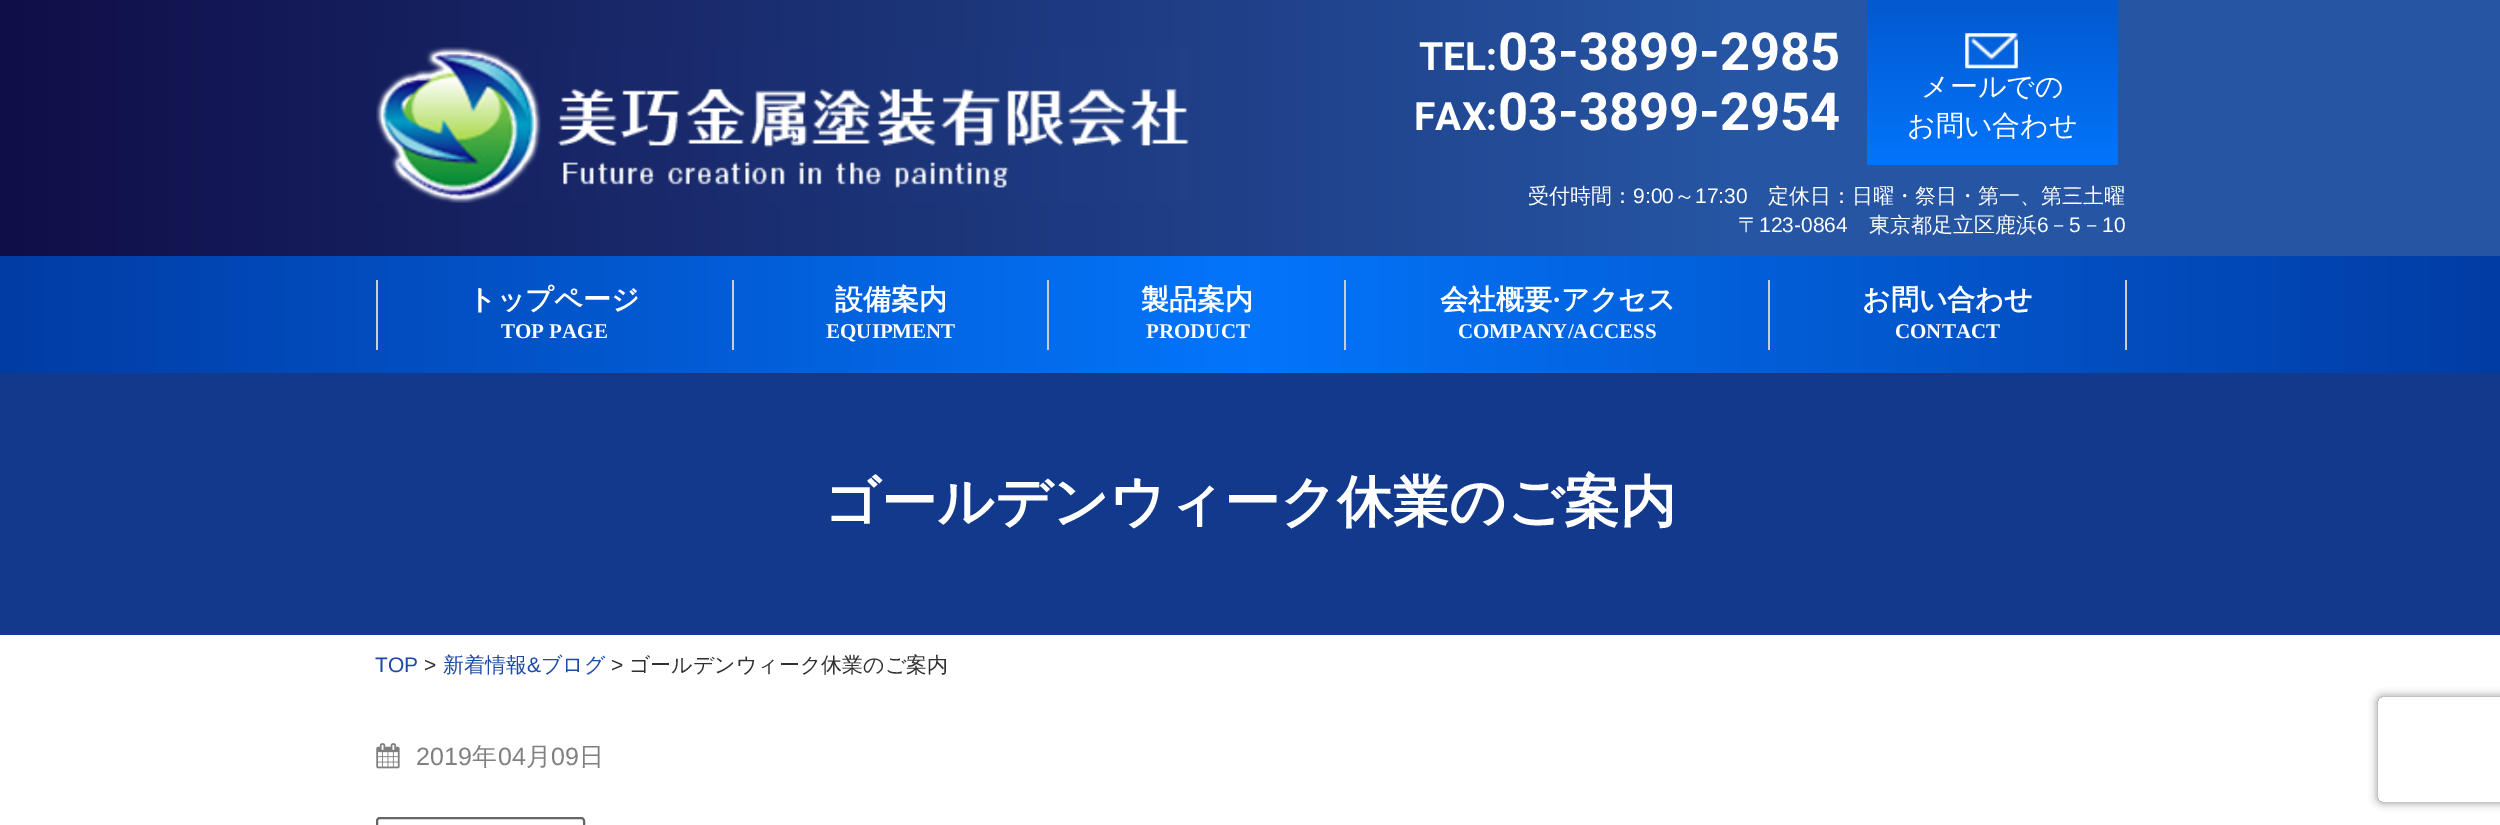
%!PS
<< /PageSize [2500 825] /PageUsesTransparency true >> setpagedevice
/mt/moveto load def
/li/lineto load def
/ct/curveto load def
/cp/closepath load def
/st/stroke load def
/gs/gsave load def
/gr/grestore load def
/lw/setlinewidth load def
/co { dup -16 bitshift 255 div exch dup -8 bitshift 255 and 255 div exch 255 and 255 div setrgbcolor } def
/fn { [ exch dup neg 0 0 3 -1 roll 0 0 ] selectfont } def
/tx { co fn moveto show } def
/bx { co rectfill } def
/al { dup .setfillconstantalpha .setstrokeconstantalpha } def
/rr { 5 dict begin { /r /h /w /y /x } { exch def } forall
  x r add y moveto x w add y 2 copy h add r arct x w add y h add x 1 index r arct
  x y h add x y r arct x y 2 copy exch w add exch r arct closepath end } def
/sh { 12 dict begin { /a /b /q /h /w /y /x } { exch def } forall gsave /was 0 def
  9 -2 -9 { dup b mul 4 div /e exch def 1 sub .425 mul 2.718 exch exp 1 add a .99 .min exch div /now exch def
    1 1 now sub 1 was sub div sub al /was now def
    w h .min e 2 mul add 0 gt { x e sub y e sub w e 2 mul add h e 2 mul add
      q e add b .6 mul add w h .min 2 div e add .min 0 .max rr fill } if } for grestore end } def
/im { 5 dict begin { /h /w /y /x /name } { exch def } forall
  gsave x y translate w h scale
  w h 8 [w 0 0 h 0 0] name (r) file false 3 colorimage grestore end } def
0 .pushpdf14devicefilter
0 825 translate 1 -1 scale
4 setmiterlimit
0 0 2500 825 16#FFFFFF bx
gs 0 0 mt 2500 0 li 2500 256 li 0 256 li cp clip newpath
<< /ShadingType 2 /ColorSpace /DeviceRGB /Coords [0 128 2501 128] /Extend [true true] /Function << /FunctionType 3 /Domain [0 1] /Functions [<< /FunctionType 2 /Domain [0 1] /C0 [.063 .055 .282] /C1 [.149 .333 .639] /N 1 >> << /FunctionType 2 /Domain [0 1] /C0 [.149 .333 .639] /C1 [.149 .333 .639] /N 1 >>] /Bounds [.69] /Encode [0 1 0 1] >> >> shfill gr
(media/1.raw) 376 47 813 156 im
gs 1867 0 mt 2118 0 li 2118 165 li 1867 165 li cp clip newpath
<< /ShadingType 2 /ColorSpace /DeviceRGB /Coords [1992 0 1992 165] /Extend [true true] /Function << /FunctionType 2 /Domain [0 1] /C0 [.008 .349 .816] /C1 [.012 .459 .984] /N 1 >> >> shfill gr
(media/2.raw) 1965 33 53 36 im
gs 0 256 mt 2500 256 li 2500 373 li 0 373 li cp clip newpath
<< /ShadingType 2 /ColorSpace /DeviceRGB /Coords [0 314 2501 314] /Extend [true true] /Function << /FunctionType 3 /Domain [0 1] /Functions [<< /FunctionType 2 /Domain [0 1] /C0 [.004 .235 .643] /C1 [.012 .459 .984] /N 1 >> << /FunctionType 2 /Domain [0 1] /C0 [.012 .459 .984] /C1 [.004 .235 .643] /N 1 >>] /Bounds [.5] /Encode [0 1 0 1] >> >> shfill gr
376 280 2 70 16#CCCCCC bx
732 280 2 70 16#CCCCCC bx
1047 280 2 70 16#CCCCCC bx
1344 280 2 70 16#CCCCCC bx
1768 280 2 70 16#CCCCCC bx
2125 280 2 70 16#CCCCCC bx
0 373 2500 262 16#12398B bx
(media/3.raw) 376 743 24 26 im
16#666666 co
2 lw
377 818 207 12 3 rr st
gs
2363 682 mt 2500 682 li 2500 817 li 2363 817 li cp 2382 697 mt 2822 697 li 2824 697 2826 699 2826 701 ct 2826 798 li 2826 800 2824 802 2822 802 ct 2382 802 li 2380 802 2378 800 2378 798 ct 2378 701 li 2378 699 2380 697 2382 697 ct cp eoclip newpath
16#808080 co
2378 697 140 105 4 4.5 1 sh
gr
(TEL:) 1419 70 /Roboto-Bold 39 16#FFFFFF tx
(03-3899-2985) 1498 70 /Roboto-Bold 52.5 16#FFFFFF tx
(FAX:) 1414 130 /Roboto-Bold 39 16#FFFFFF tx
(03-3899-2954) 1498 130 /Roboto-Bold 52.5 16#FFFFFF tx
(メールでの) 1921 96 /WenQuanYiZenHei-Medium 28 16#FFFFFF tx
(お問い合わせ) 1907 135 /WenQuanYiZenHei-Medium 28 16#FFFFFF tx
(受付時間：) 1528 203 /WenQuanYiZenHei-Medium 21 16#FFFFFF tx
(9:00) 1633 203 /LiberationSans-Regular 21 16#FFFFFF tx
(～) 1674 203 /WenQuanYiZenHei-Medium 21 16#FFFFFF tx
(17:30) 1695 203 /LiberationSans-Regular 21 16#FFFFFF tx
(定休日：日曜・祭日・第一、第三土曜) 1768 203 /WenQuanYiZenHei-Medium 21 16#FFFFFF tx
(〒) 1738 232 /WenQuanYiZenHei-Medium 21 16#FFFFFF tx
(123-0864) 1759 232 /LiberationSans-Regular 21 16#FFFFFF tx
(東京都足立区鹿浜) 1869 232 /WenQuanYiZenHei-Medium 21 16#FFFFFF tx
(6) 2037 232 /LiberationSans-Regular 21 16#FFFFFF tx
(－) 2048 232 /WenQuanYiZenHei-Medium 21 16#FFFFFF tx
(5) 2069 232 /LiberationSans-Regular 21 16#FFFFFF tx
(－) 2081 232 /WenQuanYiZenHei-Medium 21 16#FFFFFF tx
(10) 2102 232 /LiberationSans-Regular 21 16#FFFFFF tx
(トップページ) 468 309 /WenQuanYiZenHei-Bold 28 16#FFFFFF tx
(TOP PAGE) 501 338 /LiberationSerif-Bold 21 16#FFFFFF tx
(設備案内) 835 309 /WenQuanYiZenHei-Bold 28 16#FFFFFF tx
(EQUIPMENT) 826 338 /LiberationSerif-Bold 21 16#FFFFFF tx
(製品案内) 1141 309 /WenQuanYiZenHei-Bold 28 16#FFFFFF tx
(PRODUCT) 1146 338 /LiberationSerif-Bold 21 16#FFFFFF tx
(会社概要) 1440 309 /WenQuanYiZenHei-Bold 28 16#FFFFFF tx
(·) 1552 309 /LiberationSerif-Bold 28 16#FFFFFF tx
(アクセス) 1561 309 /WenQuanYiZenHei-Bold 28 16#FFFFFF tx
(COMPANY/ACCESS) 1458 338 /LiberationSerif-Bold 21 16#FFFFFF tx
(お問い合わせ) 1862 309 /WenQuanYiZenHei-Bold 28 16#FFFFFF tx
(CONTACT) 1895 338 /LiberationSerif-Bold 21 16#FFFFFF tx
(ゴールデンウィーク休業のご案内) 824 521 /WenQuanYiZenHei-Bold 56 16#FFFFFF tx
(TOP) 375 672 /LiberationSans-Regular 21 16#1D4AA7 tx
(>) 424 672 /LiberationSans-Regular 21 16#303030 tx
(新着情報) 443 672 /WenQuanYiZenHei-Medium 21 16#1D4AA7 tx
(&) 527 672 /LiberationSans-Regular 21 16#1D4AA7 tx
(ブログ) 541 672 /WenQuanYiZenHei-Medium 21 16#1D4AA7 tx
(>) 611 672 /LiberationSans-Regular 21 16#303030 tx
(ゴールデンウィーク休業のご案内) 629 672 /WenQuanYiZenHei-Medium 21 16#303030 tx
(2019) 416 765 /LiberationSans-Regular 25 16#808080 tx
(年) 472 765 /WenQuanYiZenHei-Medium 25 16#808080 tx
(04) 498 765 /LiberationSans-Regular 25 16#808080 tx
(月) 526 765 /WenQuanYiZenHei-Medium 25 16#808080 tx
(09) 551 765 /LiberationSans-Regular 25 16#808080 tx
(日) 579 765 /WenQuanYiZenHei-Medium 25 16#808080 tx
.poppdf14devicefilter showpage
